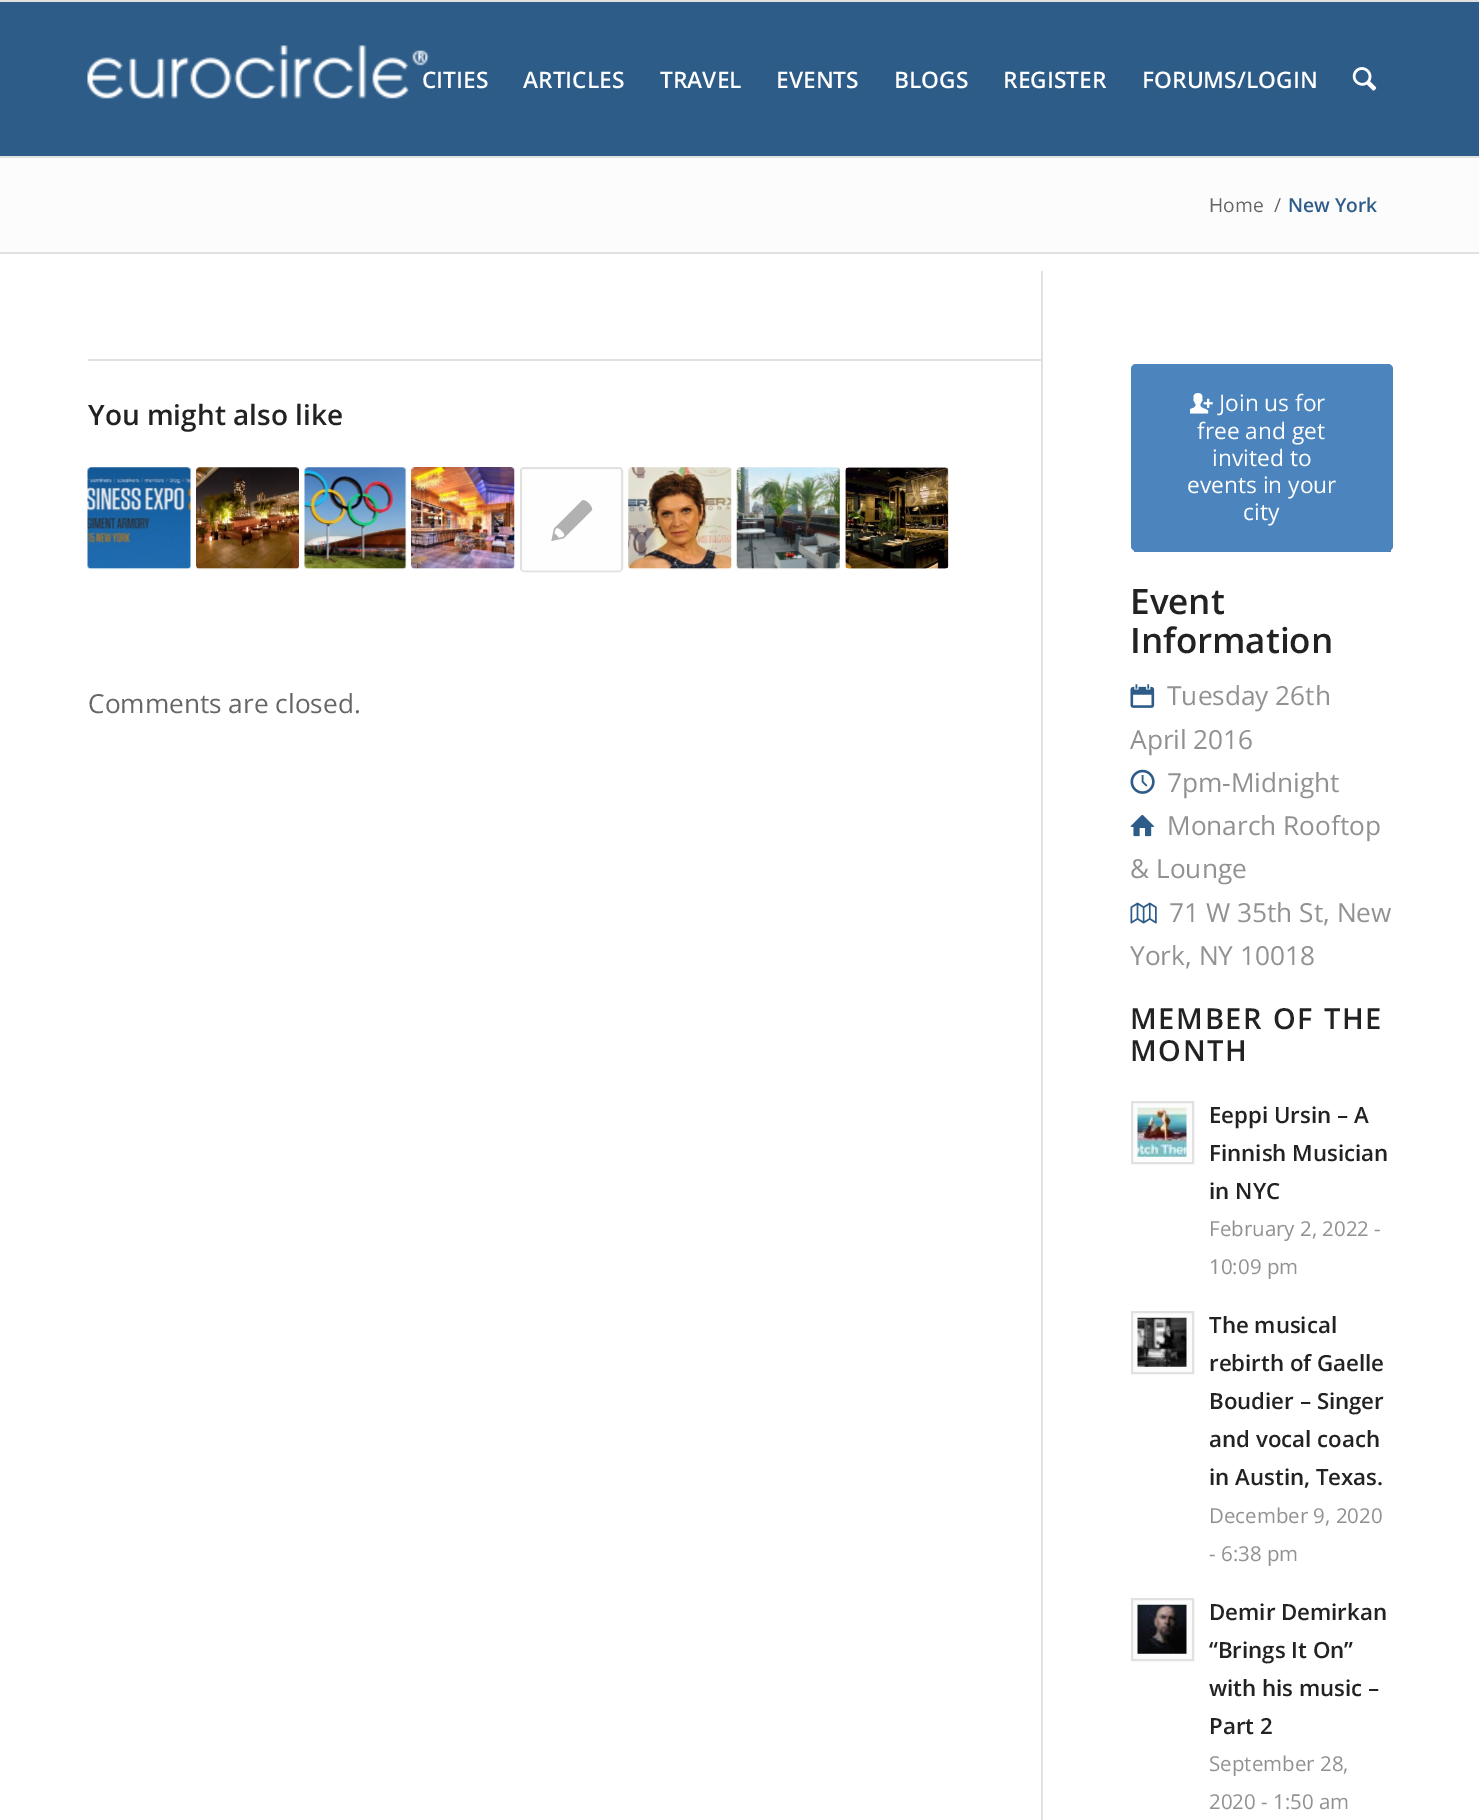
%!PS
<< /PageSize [1479 1820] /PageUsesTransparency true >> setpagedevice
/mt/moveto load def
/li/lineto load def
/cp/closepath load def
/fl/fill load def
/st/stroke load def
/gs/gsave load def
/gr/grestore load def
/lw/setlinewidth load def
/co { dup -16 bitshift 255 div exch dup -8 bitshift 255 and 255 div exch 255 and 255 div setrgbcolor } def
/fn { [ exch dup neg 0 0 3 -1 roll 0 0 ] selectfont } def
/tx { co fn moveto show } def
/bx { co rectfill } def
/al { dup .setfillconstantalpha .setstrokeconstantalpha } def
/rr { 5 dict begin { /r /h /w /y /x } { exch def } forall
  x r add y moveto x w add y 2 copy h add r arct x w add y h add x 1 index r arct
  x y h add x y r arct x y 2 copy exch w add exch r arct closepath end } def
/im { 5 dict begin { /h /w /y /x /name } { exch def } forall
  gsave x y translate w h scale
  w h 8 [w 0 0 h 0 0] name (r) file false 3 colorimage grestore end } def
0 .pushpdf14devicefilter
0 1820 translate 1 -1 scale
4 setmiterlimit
0 0 1479 1820 16#FCFCFC bx
0 2 1479 154 16#2D5C88 bx
0 0 1479 2 16#E1E1E1 bx
0 156 1479 2 16#E1E1E1 bx
(media/1.raw) 87 45 342 54 im
(media/2.raw) 1352 67 25 24 im
0 254 1479 1566 16#FFFFFF bx
0 252 1479 2 16#E1E1E1 bx
88 359 953 2 16#E1E1E1 bx
(media/3.raw) 87 467 104 103 im
(media/4.raw) 196 467 103 103 im
(media/5.raw) 304 467 103 103 im
(media/6.raw) 411 467 104 102 im
16#FCFCFC co
521 468 101 103 3 rr gs fl gr
16#E1E1E1 co
2 lw
st
0.5 al
522 469 99 102 16#FFFFFF bx
1 al
(media/7.raw) 551 500 42 41 im
(media/8.raw) 628 467 104 103 im
(media/9.raw) 736 467 104 103 im
(media/10.raw) 845 467 104 102 im
1041 271 2 1549 16#E1E1E1 bx
16#4C84BE co
1131 364 262 187 5 rr fl
1134 550 257 2 16#4C84BE bx
(media/11.raw) 1190 393 23 21 im
(media/12.raw) 1130 684 25 24 im
(media/13.raw) 1130 769 25 25 im
(media/14.raw) 1130 815 25 22 im
(media/15.raw) 1130 902 27 22 im
16#FCFCFC co
1132 1102 mt 1193 1102 li 1193 1163 li 1132 1163 li cp gs fl gr
16#E1E1E1 co
st
(media/16.raw) 1137 1107 50 50 im
16#FCFCFC co
1132 1312 mt 1193 1312 li 1193 1373 li 1132 1373 li cp gs fl gr
16#E1E1E1 co
st
(media/17.raw) 1137 1317 50 50 im
16#FCFCFC co
1132 1599 mt 1193 1599 li 1193 1660 li 1132 1660 li cp gs fl gr
16#E1E1E1 co
st
(media/18.raw) 1137 1604 50 50 im
(CITIES) 422 88 /OpenSans-SemiBold 22.75 16#FFFFFF tx
(ARTICLES) 523 88 /OpenSans-SemiBold 22.75 16#FFFFFF tx
(TRAVEL) 660 88 /OpenSans-SemiBold 22.75 16#FFFFFF tx
(EVENTS) 776 88 /OpenSans-SemiBold 22.75 16#FFFFFF tx
(BLOGS) 894 88 /OpenSans-SemiBold 22.75 16#FFFFFF tx
(REGISTER) 1003 88 /OpenSans-SemiBold 22.75 16#FFFFFF tx
(FORUMS/LOGIN) 1142 88 /OpenSans-SemiBold 22.75 16#FFFFFF tx
(Home) 1209 212 /OpenSans-Regular 19.25 16#666666 tx
(/) 1274 212 /OpenSans-Regular 19.25 16#666666 tx
(New York) 1288 212 /OpenSans-SemiBold 19.25 16#2D5C88 tx
(You might also like) 88 425 /OpenSans-SemiBold 28 16#222222 tx
(Comments are closed.) 88 713 /OpenSans-Regular 26.25 16#666666 tx
(Join us for) 1219 411 /OpenSans-Regular 22.75 16#FFFFFF tx
(free and get) 1197 439 /OpenSans-Regular 22.75 16#FFFFFF tx
(invited to) 1212 466 /OpenSans-Regular 22.75 16#FFFFFF tx
(events in your) 1187 493 /OpenSans-Regular 22.75 16#FFFFFF tx
(city) 1243 520 /OpenSans-Regular 22.75 16#FFFFFF tx
(Event) 1130 614 /OpenSans-SemiBold 35 16#222222 tx
(Information) 1130 653 /OpenSans-SemiBold 35 16#222222 tx
(Tuesday 26th) 1167 705 /OpenSans-Regular 26.25 16#919191 tx
(April 2016) 1130 749 /OpenSans-Regular 26.25 16#919191 tx
(7pm-Midnight) 1167 792 /OpenSans-Regular 26.25 16#919191 tx
(Monarch Rooftop) 1167 835 /OpenSans-Regular 26.25 16#919191 tx
(& Lounge) 1130 878 /OpenSans-Regular 26.25 16#919191 tx
(71 W 35th St, New) 1169 922 /OpenSans-Regular 26.25 16#919191 tx
(York, NY 10018) 1130 965 /OpenSans-Regular 26.25 16#919191 tx
/OpenSans-SemiBold 28.9 fn
16#222222 co
1130 1029 mt 1.75 0 (MEMBER OF THE) ashow
1130 1061 mt 1.75 0 (MONTH) ashow
(Eeppi Ursin – A) 1209 1123 /OpenSans-SemiBold 22.25 16#222222 tx
(Finnish Musician) 1209 1161 /OpenSans-SemiBold 22.25 16#222222 tx
(in NYC) 1209 1199 /OpenSans-SemiBold 22.25 16#222222 tx
(February 2, 2022 -) 1209 1236 /OpenSans-Regular 20.5 16#919191 tx
(10:09 pm) 1209 1274 /OpenSans-Regular 20.5 16#919191 tx
(The musical) 1209 1333 /OpenSans-SemiBold 22.25 16#222222 tx
(rebirth of Gaelle) 1209 1371 /OpenSans-SemiBold 22.25 16#222222 tx
(Boudier – Singer) 1209 1409 /OpenSans-SemiBold 22.25 16#222222 tx
(and vocal coach) 1209 1447 /OpenSans-SemiBold 22.25 16#222222 tx
(in Austin, Texas.) 1209 1485 /OpenSans-SemiBold 22.25 16#222222 tx
(December 9, 2020) 1209 1523 /OpenSans-Regular 20.5 16#919191 tx
(- 6:38 pm) 1209 1561 /OpenSans-Regular 20.5 16#919191 tx
(Demir Demirkan) 1209 1620 /OpenSans-SemiBold 22.25 16#222222 tx
(“Brings It On”) 1209 1658 /OpenSans-SemiBold 22.25 16#222222 tx
(with his music –) 1209 1696 /OpenSans-SemiBold 22.25 16#222222 tx
(Part 2) 1209 1734 /OpenSans-SemiBold 22.25 16#222222 tx
(September 28,) 1209 1771 /OpenSans-Regular 20.5 16#919191 tx
(2020 - 1:50 am) 1209 1809 /OpenSans-Regular 20.5 16#919191 tx
.poppdf14devicefilter showpage
